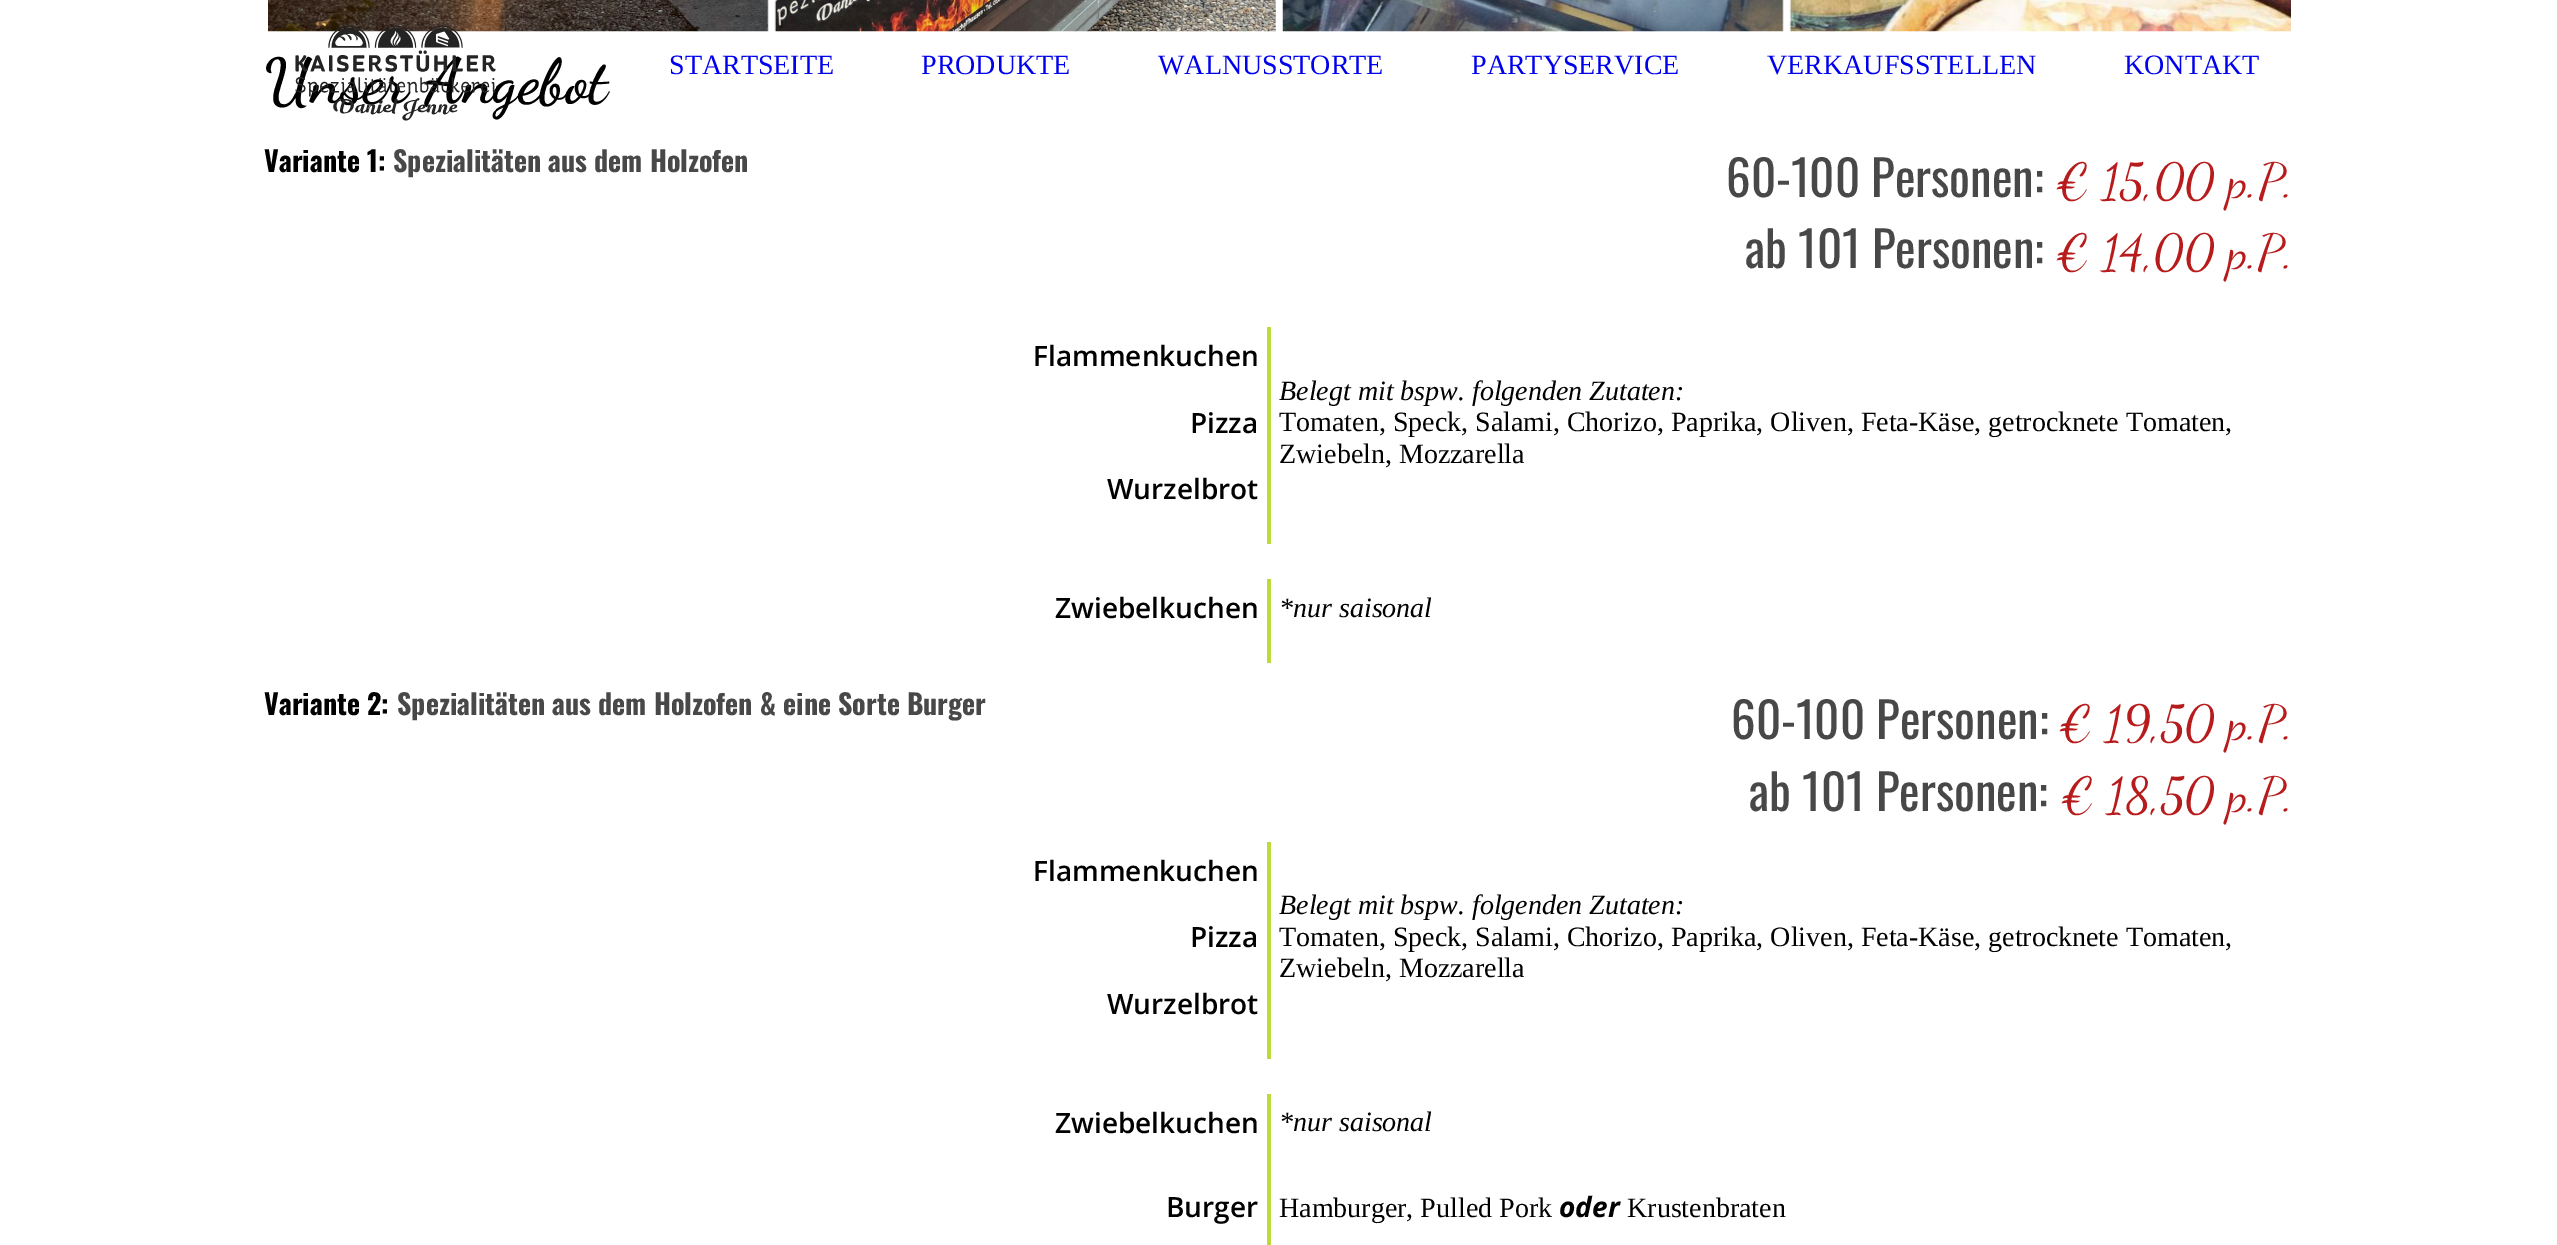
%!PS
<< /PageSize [2557 1245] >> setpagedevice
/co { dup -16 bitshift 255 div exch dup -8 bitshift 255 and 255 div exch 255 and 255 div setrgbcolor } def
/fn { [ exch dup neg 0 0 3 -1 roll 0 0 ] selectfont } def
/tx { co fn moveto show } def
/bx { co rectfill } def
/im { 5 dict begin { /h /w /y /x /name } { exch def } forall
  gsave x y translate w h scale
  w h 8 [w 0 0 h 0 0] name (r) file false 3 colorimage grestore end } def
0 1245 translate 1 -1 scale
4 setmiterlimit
0 0 2557 1245 16#FFFFFF bx
(media/2.raw) 268 0 501 32 im
(media/3.raw) 774 0 502 32 im
(media/4.raw) 1282 0 502 32 im
(media/5.raw) 1789 0 502 32 im
1267 327 4 217 16#BBDB3A bx
1267 579 4 84 16#BBDB3A bx
1267 842 4 217 16#BBDB3A bx
1267 1094 4 151 16#BBDB3A bx
(STARTSEITE) 669 74 /LiberationSerif-Regular 28 16#0000EE tx
(PRODUKTE) 921 74 /LiberationSerif-Regular 28 16#0000EE tx
(WALNUSSTORTE) 1158 74 /LiberationSerif-Regular 28 16#0000EE tx
(PARTYSERVICE) 1471 74 /LiberationSerif-Regular 28 16#0000EE tx
(VERKAUFSSTELLEN) 1767 74 /LiberationSerif-Regular 28 16#0000EE tx
(KONTAKT) 2124 74 /LiberationSerif-Regular 28 16#0000EE tx
(Unser Angebot) 264 102 /DancingScript-Bold 63 16#000000 tx
(media/1.raw) 295 25 201 96 im
(Variante 1:) 264 172 /Oswald-Bold 28 16#000000 tx
(Spezialitäten aus dem Holzofen) 393 172 /Oswald-Bold 28 16#484848 tx
(60-100 Personen:) 1726 197 /Oswald-Regular 49 16#484848 tx
(€ 15,00 p.P.) 2056 197 /DancingScript-Regular 49 16#B81B1B tx
(ab 101 Personen:) 1745 268 /Oswald-Regular 49 16#484848 tx
(€ 14,00 p.P.) 2056 268 /DancingScript-Regular 49 16#B81B1B tx
(Flammenkuchen) 1033 366 /OpenSans-SemiBold 28 16#000000 tx
(Pizza) 1190 433 /OpenSans-SemiBold 28 16#000000 tx
(Wurzelbrot) 1107 499 /OpenSans-SemiBold 28 16#000000 tx
(Belegt mit bspw. folgenden Zutaten:) 1279 400 /LiberationSerif-Italic 28 16#000000 tx
(Tomaten, Speck, Salami, Chorizo, Paprika, Oliven, Feta-Käse, getrocknete Tomaten,) 1279 431 /LiberationSerif-Regular 28 16#000000 tx
(Zwiebeln, Mozzarella) 1279 463 /LiberationSerif-Regular 28 16#000000 tx
(Zwiebelkuchen) 1055 618 /OpenSans-SemiBold 28 16#000000 tx
(*nur saisonal) 1279 617 /LiberationSerif-Italic 28 16#000000 tx
(Variante 2:) 264 715 /Oswald-Bold 28 16#000000 tx
(Spezialitäten aus dem Holzofen & eine Sorte Burger) 397 715 /Oswald-Bold 28 16#484848 tx
(60-100 Personen:) 1731 739 /Oswald-Regular 49 16#484848 tx
(€ 19,50 p.P.) 2059 739 /DancingScript-Regular 49 16#B81B1B tx
(ab 101 Personen:) 1749 811 /Oswald-Regular 49 16#484848 tx
(€ 18,50 p.P.) 2061 811 /DancingScript-Regular 49 16#B81B1B tx
(Flammenkuchen) 1033 881 /OpenSans-SemiBold 28 16#000000 tx
(Pizza) 1190 947 /OpenSans-SemiBold 28 16#000000 tx
(Wurzelbrot) 1107 1014 /OpenSans-SemiBold 28 16#000000 tx
(Belegt mit bspw. folgenden Zutaten:) 1279 914 /LiberationSerif-Italic 28 16#000000 tx
(Tomaten, Speck, Salami, Chorizo, Paprika, Oliven, Feta-Käse, getrocknete Tomaten,) 1279 946 /LiberationSerif-Regular 28 16#000000 tx
(Zwiebeln, Mozzarella) 1279 977 /LiberationSerif-Regular 28 16#000000 tx
(Zwiebelkuchen) 1055 1133 /OpenSans-SemiBold 28 16#000000 tx
(*nur saisonal) 1279 1131 /LiberationSerif-Italic 28 16#000000 tx
(Burger) 1166 1217 /OpenSans-SemiBold 28 16#000000 tx
(Hamburger, Pulled Pork) 1279 1217 /LiberationSerif-Regular 28 16#000000 tx
(oder) 1559 1217 /OpenSans-BoldItalic 28 16#000000 tx
(Krustenbraten) 1627 1217 /LiberationSerif-Regular 28 16#000000 tx
showpage
